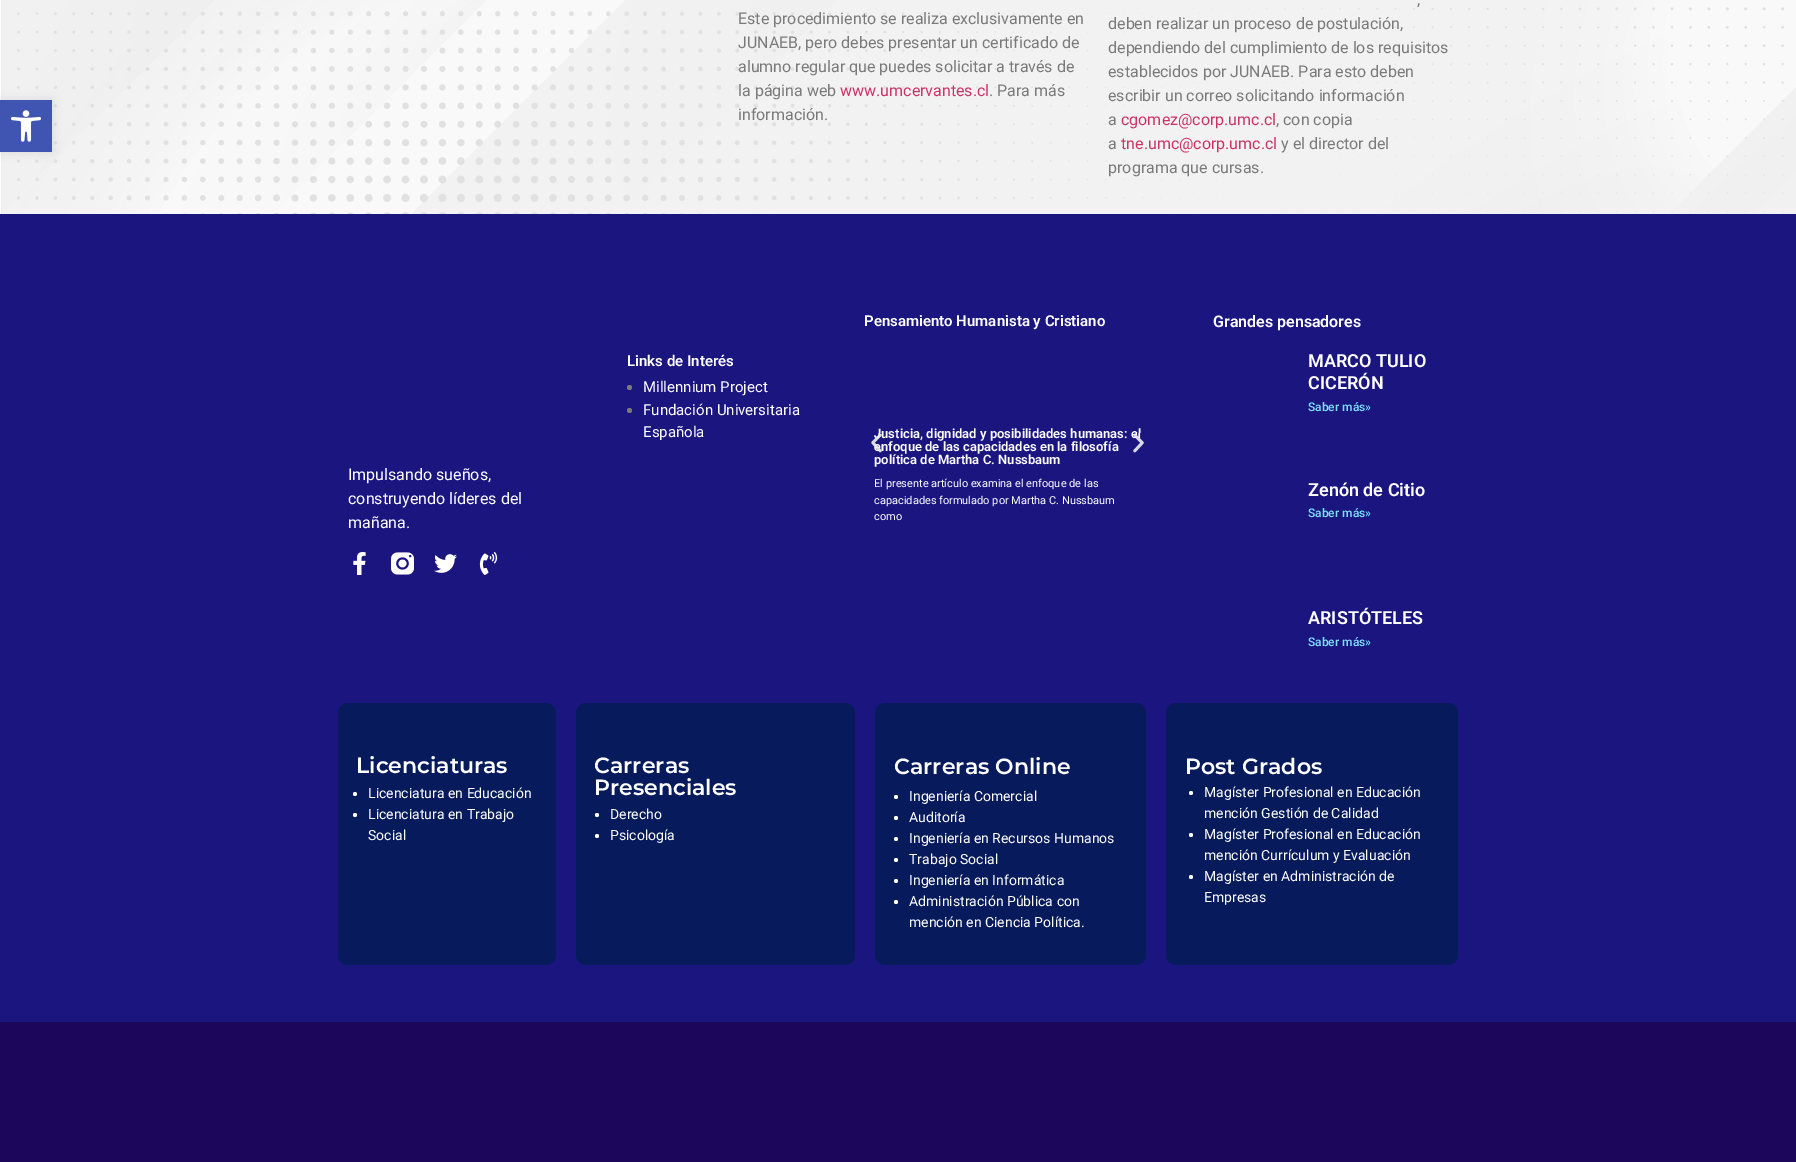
%!PS
<< /PageSize [1796 1162] /PageUsesTransparency true >> setpagedevice
/fl/fill load def
/co { dup -16 bitshift 255 div exch dup -8 bitshift 255 and 255 div exch 255 and 255 div setrgbcolor } def
/fn { [ exch dup neg 0 0 3 -1 roll 0 0 ] selectfont } def
/tx { co fn moveto show } def
/bx { co rectfill } def
/al { dup .setfillconstantalpha .setstrokeconstantalpha } def
/ci { newpath 0 360 arc closepath } def
/rr { 5 dict begin { /r /h /w /y /x } { exch def } forall
  x r add y moveto x w add y 2 copy h add r arct x w add y h add x 1 index r arct
  x y h add x y r arct x y 2 copy exch w add exch r arct closepath end } def
/sh { 12 dict begin { /a /b /q /h /w /y /x } { exch def } forall gsave /was 0 def
  9 -2 -9 { dup b mul 4 div /e exch def 1 sub .425 mul 2.718 exch exp 1 add a .99 .min exch div /now exch def
    1 1 now sub 1 was sub div sub al /was now def
    w h .min e 2 mul add 0 gt { x e sub y e sub w e 2 mul add h e 2 mul add
      q e add b .6 mul add w h .min 2 div e add .min 0 .max rr fill } if } for grestore end } def
/im { 5 dict begin { /h /w /y /x /name } { exch def } forall
  gsave x y translate w h scale
  w h 8 [w 0 0 h 0 0] name (r) file false 3 colorimage grestore end } def
0 .pushpdf14devicefilter
0 1162 translate 1 -1 scale
4 setmiterlimit
0 0 1796 1162 16#FFFFFF bx
(media/1.raw) 1 0 1795 214 im
16#000000 co
0 100 52 52 0 5 .1 sh
0 100 52 52 16#4054B2 bx
(media/2.raw) 11 110 30 32 im
0 214 1796 808 16#1B1580 bx
16#7A7A7A co
629.5 387.5 2.5 ci fl
629.5 410.5 2.5 ci fl
(media/5.raw) 353 552 13 23 im
(media/6.raw) 391 552 23 23 im
(media/7.raw) 434 554 23 19 im
(media/8.raw) 479 552 19 23 im
16#071A5C co
338 703 218 262 10 rr fl
16#FFFFFF co
355 794 2 ci fl
355 815 2 ci fl
16#071A5C co
576 703 279 262 10 rr fl
16#FFFFFF co
597 815 2 ci fl
597 836 2 ci fl
16#071A5C co
875 703 271 262 10 rr fl
16#FFFFFF co
896 797 2 ci fl
896 818 2 ci fl
896 839 2 ci fl
896 860 2 ci fl
896 881 2 ci fl
896 902 2 ci fl
16#071A5C co
1166 703 292 262 10 rr fl
16#FFFFFF co
1191 793 2 ci fl
1191 835 2 ci fl
1191 877 2 ci fl
0 1022 1796 140 16#1C065B bx
(Este procedimiento se realiza exclusivamente en) 738 24 /Roboto-Regular 16 16#7A7A7A tx
(JUNAEB, pero debes presentar un certificado de) 738 48 /Roboto-Regular 16 16#7A7A7A tx
(alumno regular que puedes solicitar a través de) 738 72 /Roboto-Regular 16 16#7A7A7A tx
(la página web) 738 96 /Roboto-Regular 16 16#7A7A7A tx
(www.umcervantes.cl) 840 96 /Roboto-Regular 16 16#CC3366 tx
(. Para más) 989 96 /Roboto-Regular 16 16#7A7A7A tx
(información.) 738 120 /Roboto-Regular 16 16#7A7A7A tx
(,) 1417 5 /Roboto-Regular 16 16#7A7A7A tx
(deben realizar un proceso de postulación,) 1108 29 /Roboto-Regular 16 16#7A7A7A tx
(dependiendo del cumplimiento de los requisitos) 1108 53 /Roboto-Regular 16 16#7A7A7A tx
(establecidos por JUNAEB. Para esto deben) 1108 77 /Roboto-Regular 16 16#7A7A7A tx
(escribir un correo solicitando información) 1108 101 /Roboto-Regular 16 16#7A7A7A tx
(a) 1108 125 /Roboto-Regular 16 16#7A7A7A tx
(cgomez@corp.umc.cl) 1121 125 /Roboto-Regular 16 16#CC3366 tx
(, con copia) 1276 125 /Roboto-Regular 16 16#7A7A7A tx
(a) 1108 149 /Roboto-Regular 16 16#7A7A7A tx
(tne.umc@corp.umc.cl) 1121 149 /Roboto-Regular 16 16#CC3366 tx
(y el director del) 1281 149 /Roboto-Regular 16 16#7A7A7A tx
(programa que cursas.) 1108 173 /Roboto-Regular 16 16#7A7A7A tx
(Links de Interés) 627 366 /Roboto-SemiBold 15 16#FFFFFF tx
(Millennium Project) 643 392 /Roboto-Regular 15 16#FFFFFF tx
(Fundación Universitaria) 643 415 /Roboto-Regular 15 16#FFFFFF tx
(Española) 643 437 /Roboto-Regular 15 16#FFFFFF tx
(Pensamiento Humanista y Cristiano) 864 326 /Roboto-SemiBold 15 16#FFFFFF tx
(Justicia, dignidad y posibilidades humanas: el) 874 438 /Roboto-SemiBold 13 16#FFFFFF tx
(enfoque de las capacidades en la filosofía) 874 451 /Roboto-SemiBold 13 16#FFFFFF tx
(política de Martha C. Nussbaum) 874 464 /Roboto-SemiBold 13 16#FFFFFF tx
(El presente artículo examina el enfoque de las) 874 487 /Roboto-Regular 11 16#FFFFFF tx
(capacidades formulado por Martha C. Nussbaum) 874 504 /Roboto-Regular 11 16#FFFFFF tx
(como) 874 520 /Roboto-Regular 11 16#FFFFFF tx
(media/3.raw) 871 433 11 20 im
(media/4.raw) 1133 433 11 20 im
(Grandes pensadores) 1213 327 /Roboto-SemiBold 16 16#FFFFFF tx
(MARCO TULIO) 1308 367 /Roboto-SemiBold 18 16#FFFFFF tx
(CICERÓN) 1308 389 /Roboto-SemiBold 18 16#FFFFFF tx
(Saber más») 1308 411 /Roboto-Medium 12 16#80E0FF tx
(Zenón de Citio) 1308 496 /Roboto-SemiBold 18 16#FFFFFF tx
(Saber más») 1308 517 /Roboto-Medium 12 16#80E0FF tx
(ARISTÓTELES) 1308 624 /Roboto-SemiBold 18 16#FFFFFF tx
(Saber más») 1308 646 /Roboto-Medium 12 16#80E0FF tx
(Impulsando sueños,) 348 480 /Roboto-Regular 16 16#FFFFFF tx
(construyendo líderes del) 348 504 /Roboto-Regular 16 16#FFFFFF tx
(mañana.) 348 528 /Roboto-Regular 16 16#FFFFFF tx
(Licenciaturas) 356 773 /Montserrat-SemiBold 22 16#FFFFFF tx
(Licenciatura en Educación) 368 798 /Roboto-Regular 14 16#FFFFFF tx
(Licenciatura en Trabajo) 368 819 /Roboto-Regular 14 16#FFFFFF tx
(Social) 368 840 /Roboto-Regular 14 16#FFFFFF tx
(Carreras) 594 773 /Montserrat-SemiBold 22 16#FFFFFF tx
(Presenciales) 594 795 /Montserrat-SemiBold 22 16#FFFFFF tx
(Derecho) 610 819 /Roboto-Regular 14 16#FFFFFF tx
(Psicología) 610 840 /Roboto-Regular 14 16#FFFFFF tx
(Carreras Online) 894 774 /Montserrat-SemiBold 22 16#FFFFFF tx
(Ingeniería Comercial) 909 801 /Roboto-Regular 14 16#FFFFFF tx
(Auditoría) 909 822 /Roboto-Regular 14 16#FFFFFF tx
(Ingeniería en Recursos Humanos) 909 843 /Roboto-Regular 14 16#FFFFFF tx
(Trabajo Social) 909 864 /Roboto-Regular 14 16#FFFFFF tx
(Ingeniería en Informática) 909 885 /Roboto-Regular 14 16#FFFFFF tx
(Administración Pública con) 909 906 /Roboto-Regular 14 16#FFFFFF tx
(mención en Ciencia Política.) 909 927 /Roboto-Regular 14 16#FFFFFF tx
(Post Grados) 1185 774 /Montserrat-SemiBold 22 16#FFFFFF tx
(Magíster Profesional en Educación) 1204 797 /Roboto-Regular 14 16#FFFFFF tx
(mención Gestión de Calidad) 1204 818 /Roboto-Regular 14 16#FFFFFF tx
(Magíster Profesional en Educación) 1204 839 /Roboto-Regular 14 16#FFFFFF tx
(mención Currículum y Evaluación) 1204 860 /Roboto-Regular 14 16#FFFFFF tx
(Magíster en Administración de) 1204 881 /Roboto-Regular 14 16#FFFFFF tx
(Empresas) 1204 902 /Roboto-Regular 14 16#FFFFFF tx
.poppdf14devicefilter showpage
